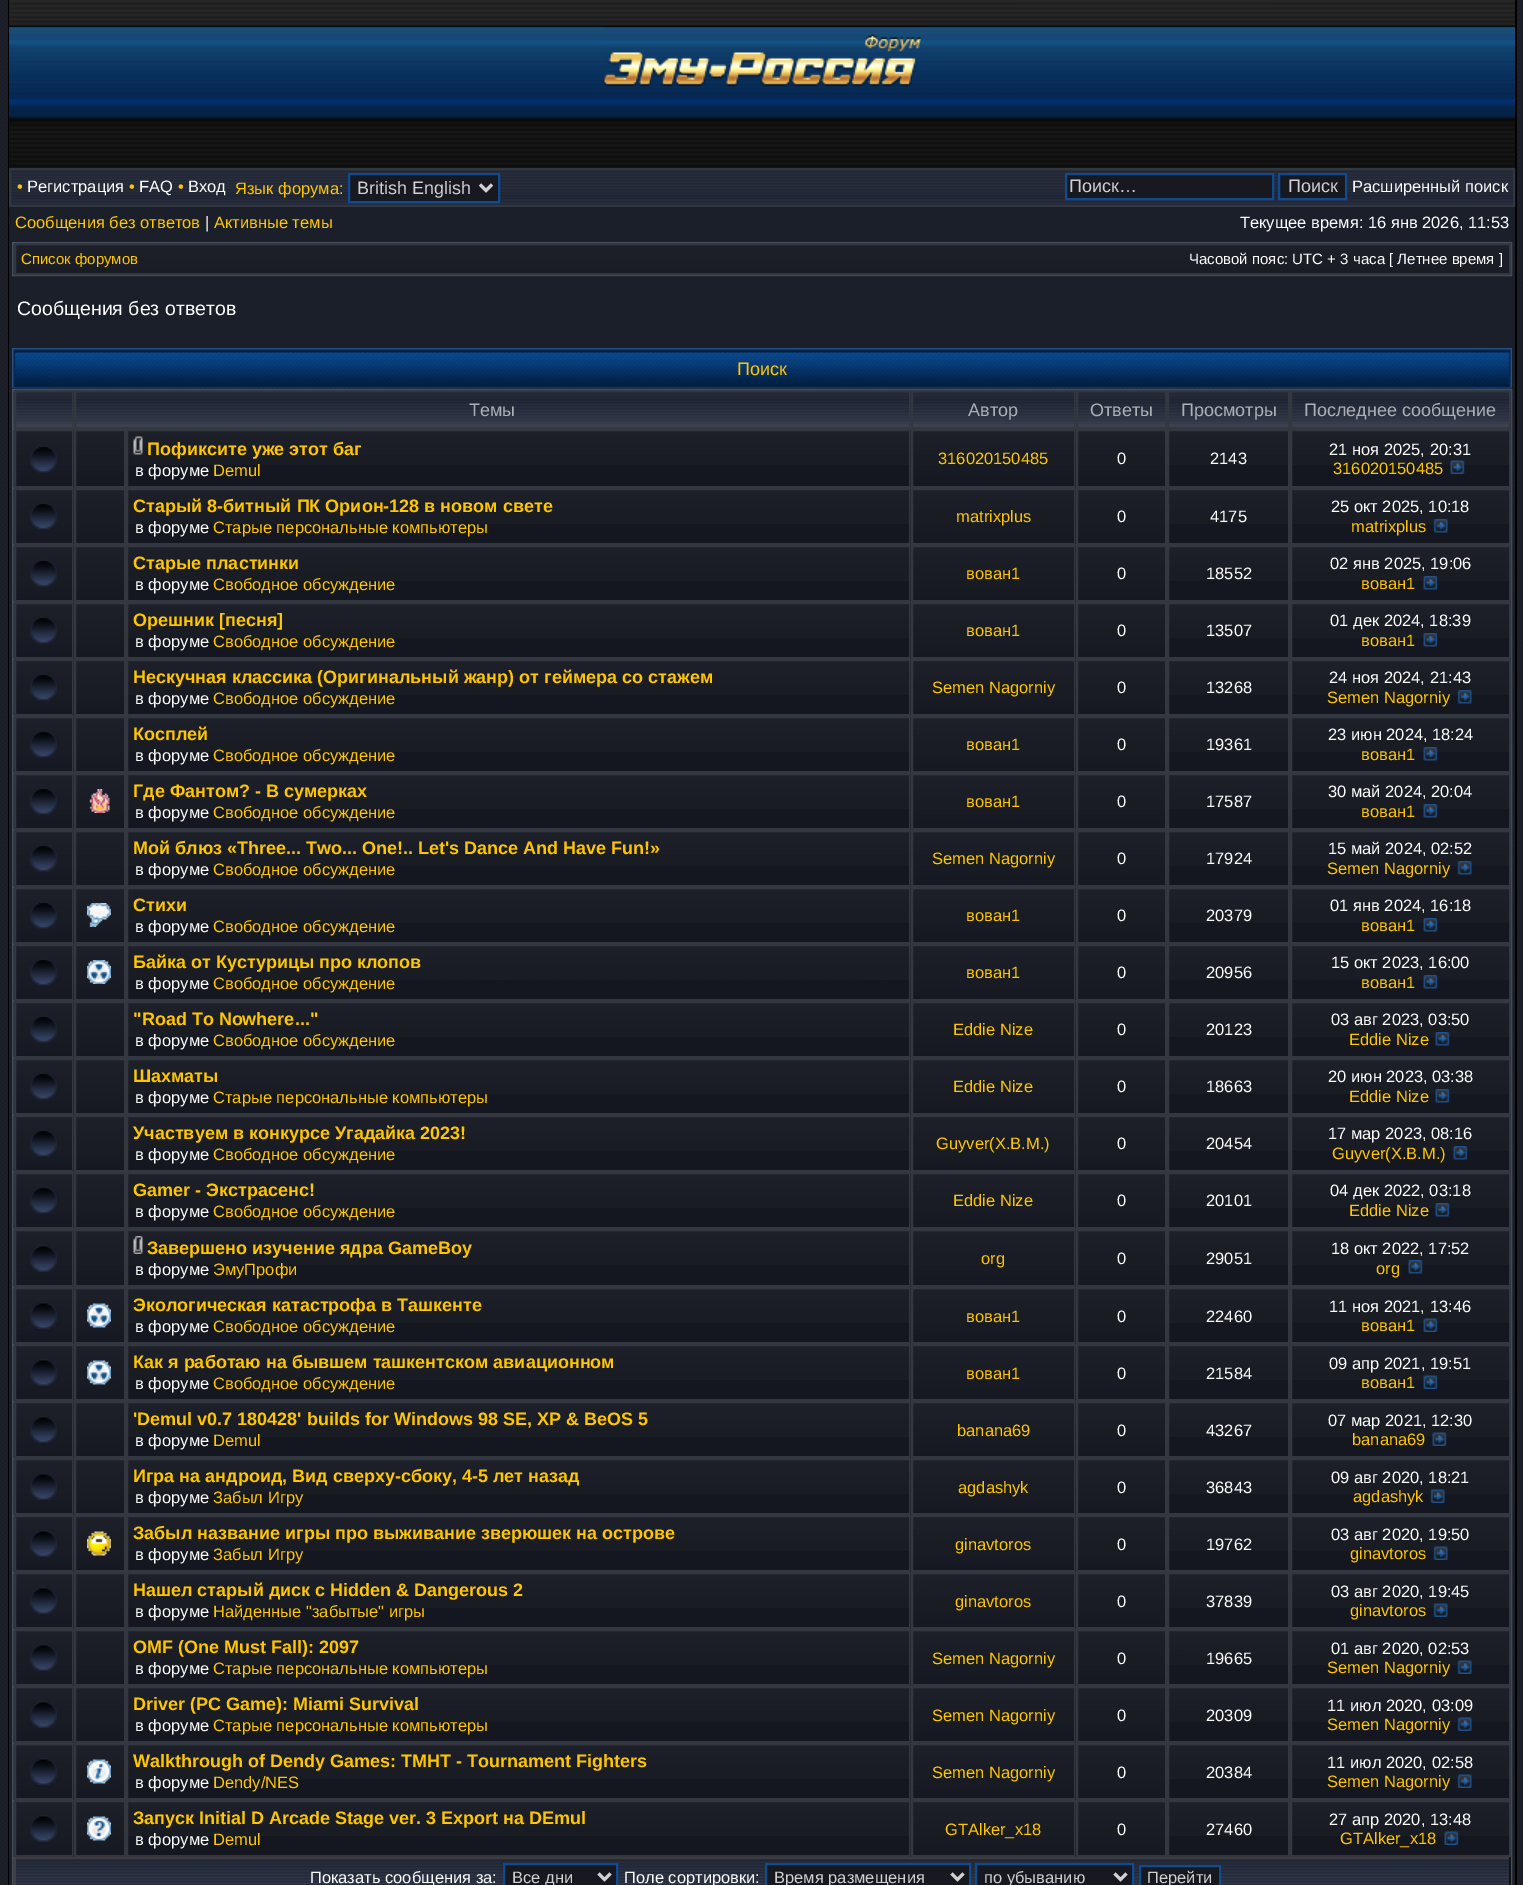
%!PS
<< /PageSize [1523 1885] >> setpagedevice
/mt/moveto load def
/li/lineto load def
/cp/closepath load def
/fl/fill load def
/st/stroke load def
/gs/gsave load def
/gr/grestore load def
/lw/setlinewidth load def
/co { dup -16 bitshift 255 div exch dup -8 bitshift 255 and 255 div exch 255 and 255 div setrgbcolor } def
/fn { [ exch dup neg 0 0 3 -1 roll 0 0 ] selectfont } def
/tx { co fn moveto show } def
/bx { co rectfill } def
/im { 5 dict begin { /h /w /y /x /name } { exch def } forall
  gsave x y translate w h scale
  w h 8 [w 0 0 h 0 0] name (r) file false 3 colorimage grestore end } def
0 1885 translate 1 -1 scale
4 setmiterlimit
0 0 1523 1885 16#FFFFFF bx
(media/1.raw) 0 0 1523 1885 im
1515 0 2 1885 16#000000 bx
8 0 1 1885 16#000000 bx
(media/2.raw) 9 0 1506 168 im
(media/3.raw) 603 26 318 61 im
(media/4.raw) 11 170 1502 35 im
16#33373F co
2 lw
10 169 1504 37 rectstroke
16#171820 co
349 174 mt 499 174 li 499 202 li 349 202 li cp gs fl gr
16#0F4B90 co
st
16#D0D0D0 co
3 lw
480 184.5 mt 486 190.5 li 492 184.5 li st
16#171820 co
1066 174 mt 1273 174 li 1273 199 li 1066 199 li cp gs fl gr
16#0F4B90 co
2 lw
st
16#171820 co
1279 174 mt 1346 174 li 1346 199 li 1279 199 li cp gs fl gr
16#0F4B90 co
st
9 207 1506 1678 16#1A1F29 bx
16#494F5F co
13 243 1498 32 rectstroke
(media/5.raw) 13 244 1496 31 im
16#33373F co
15 244 1495 30 rectstroke
(media/6.raw) 12 348 1500 41 im
(media/7.raw) 12 349 38 40 im
(media/8.raw) 1474 349 38 40 im
16#494F5F co
13 390 1498 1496 rectstroke
(media/9.raw) 13 391 59 38 im
16#33373F co
15 391 58 37 rectstroke
(media/10.raw) 73 391 836 38 im
75 391 835 37 rectstroke
(media/11.raw) 910 391 164 38 im
912 391 163 37 rectstroke
(media/12.raw) 1075 391 90 38 im
1077 391 89 37 rectstroke
(media/13.raw) 1169 392 119 35 im
1168 391 121 37 rectstroke
(media/14.raw) 1292 392 217 35 im
1291 391 219 37 rectstroke
(media/15.raw) 13 430 59 58 im
15 430 58 57 rectstroke
(media/16.raw) 30 445 27 28 im
(media/17.raw) 73 430 51 58 im
75 430 50 57 rectstroke
128 465 781 21 16#14171F bx
(media/18.raw) 128 431 781 34 im
16#33373F co
127 430 783 57 rectstroke
(media/19.raw) 133 436 10 19 im
(media/20.raw) 910 430 164 58 im
912 430 163 57 rectstroke
(media/21.raw) 1075 430 90 58 im
1077 430 89 57 rectstroke
1169 465 119 21 16#14171F bx
(media/22.raw) 1169 431 119 34 im
16#33373F co
1168 430 121 57 rectstroke
1292 465 217 21 16#14171F bx
(media/23.raw) 1292 431 217 34 im
16#33373F co
1291 430 219 57 rectstroke
(media/24.raw) 1450 460 15 14 im
(media/25.raw) 13 489 59 56 im
15 489 58 55 rectstroke
(media/26.raw) 30 502 27 28 im
(media/27.raw) 73 489 51 56 im
75 489 50 55 rectstroke
128 524 781 19 16#14171F bx
(media/28.raw) 128 490 781 34 im
16#33373F co
127 489 783 55 rectstroke
(media/29.raw) 910 489 164 56 im
912 489 163 55 rectstroke
(media/30.raw) 1075 489 90 56 im
1077 489 89 55 rectstroke
1169 524 119 19 16#14171F bx
(media/31.raw) 1169 490 119 34 im
16#33373F co
1168 489 121 55 rectstroke
1292 524 217 19 16#14171F bx
(media/32.raw) 1292 490 217 34 im
16#33373F co
1291 489 219 55 rectstroke
(media/33.raw) 1433 519 15 14 im
(media/34.raw) 13 546 59 56 im
15 546 58 55 rectstroke
(media/26.raw) 30 559 27 28 im
(media/35.raw) 73 546 51 56 im
75 546 50 55 rectstroke
128 581 781 19 16#14171F bx
(media/36.raw) 128 547 781 34 im
16#33373F co
127 546 783 55 rectstroke
(media/37.raw) 910 546 164 56 im
912 546 163 55 rectstroke
(media/38.raw) 1075 546 90 56 im
1077 546 89 55 rectstroke
1169 581 119 19 16#14171F bx
(media/31.raw) 1169 547 119 34 im
16#33373F co
1168 546 121 55 rectstroke
1292 581 217 19 16#14171F bx
(media/39.raw) 1292 547 217 34 im
16#33373F co
1291 546 219 55 rectstroke
(media/40.raw) 1423 576 15 14 im
(media/41.raw) 13 603 59 56 im
15 603 58 55 rectstroke
(media/26.raw) 30 616 27 28 im
(media/42.raw) 73 603 51 56 im
75 603 50 55 rectstroke
128 638 781 19 16#14171F bx
(media/43.raw) 128 604 781 34 im
16#33373F co
127 603 783 55 rectstroke
(media/44.raw) 910 603 164 56 im
912 603 163 55 rectstroke
(media/45.raw) 1075 603 90 56 im
1077 603 89 55 rectstroke
1169 638 119 19 16#14171F bx
(media/46.raw) 1169 604 119 34 im
16#33373F co
1168 603 121 55 rectstroke
1292 638 217 19 16#14171F bx
(media/47.raw) 1292 604 217 34 im
16#33373F co
1291 603 219 55 rectstroke
(media/40.raw) 1423 633 15 14 im
(media/48.raw) 13 660 59 56 im
15 660 58 55 rectstroke
(media/49.raw) 30 673 27 28 im
(media/50.raw) 73 660 51 56 im
75 660 50 55 rectstroke
128 695 781 19 16#14171F bx
(media/51.raw) 128 661 781 34 im
16#33373F co
127 660 783 55 rectstroke
(media/52.raw) 910 660 164 56 im
912 660 163 55 rectstroke
(media/53.raw) 1075 660 90 56 im
1077 660 89 55 rectstroke
1169 695 119 19 16#14171F bx
(media/54.raw) 1169 661 119 34 im
16#33373F co
1168 660 121 55 rectstroke
1292 695 217 19 16#14171F bx
(media/55.raw) 1292 661 217 34 im
16#33373F co
1291 660 219 55 rectstroke
(media/56.raw) 1457 690 15 14 im
(media/57.raw) 13 717 59 56 im
15 717 58 55 rectstroke
(media/58.raw) 30 730 27 28 im
(media/59.raw) 73 717 51 56 im
75 717 50 55 rectstroke
128 752 781 19 16#14171F bx
(media/60.raw) 128 718 781 34 im
16#33373F co
127 717 783 55 rectstroke
(media/61.raw) 910 717 164 56 im
912 717 163 55 rectstroke
(media/62.raw) 1075 717 90 56 im
1077 717 89 55 rectstroke
1169 752 119 19 16#14171F bx
(media/31.raw) 1169 718 119 34 im
16#33373F co
1168 717 121 55 rectstroke
1292 752 217 19 16#14171F bx
(media/63.raw) 1292 718 217 34 im
16#33373F co
1291 717 219 55 rectstroke
(media/40.raw) 1423 747 15 14 im
(media/64.raw) 13 774 59 56 im
15 774 58 55 rectstroke
(media/65.raw) 30 787 27 28 im
(media/66.raw) 73 774 51 56 im
75 774 50 55 rectstroke
(media/67.raw) 89 789 21 24 im
128 809 781 19 16#14171F bx
(media/36.raw) 128 775 781 34 im
16#33373F co
127 774 783 55 rectstroke
(media/68.raw) 910 774 164 56 im
912 774 163 55 rectstroke
(media/69.raw) 1075 774 90 56 im
1077 774 89 55 rectstroke
1169 809 119 19 16#14171F bx
(media/31.raw) 1169 775 119 34 im
16#33373F co
1168 774 121 55 rectstroke
1292 809 217 19 16#14171F bx
(media/39.raw) 1292 775 217 34 im
16#33373F co
1291 774 219 55 rectstroke
(media/40.raw) 1423 804 15 14 im
(media/70.raw) 13 831 59 56 im
15 831 58 55 rectstroke
(media/49.raw) 30 844 27 28 im
(media/71.raw) 73 831 51 56 im
75 831 50 55 rectstroke
128 866 781 19 16#14171F bx
(media/72.raw) 128 832 781 34 im
16#33373F co
127 831 783 55 rectstroke
(media/73.raw) 910 831 164 56 im
912 831 163 55 rectstroke
(media/74.raw) 1075 831 90 56 im
1077 831 89 55 rectstroke
1169 866 119 19 16#14171F bx
(media/75.raw) 1169 832 119 34 im
16#33373F co
1168 831 121 55 rectstroke
1292 866 217 19 16#14171F bx
(media/76.raw) 1292 832 217 34 im
16#33373F co
1291 831 219 55 rectstroke
(media/56.raw) 1457 861 15 14 im
(media/77.raw) 13 888 59 56 im
15 888 58 55 rectstroke
(media/78.raw) 30 901 27 28 im
(media/79.raw) 73 888 51 56 im
75 888 50 55 rectstroke
(media/80.raw) 87 903 24 24 im
128 923 781 19 16#14171F bx
(media/81.raw) 128 889 781 34 im
16#33373F co
127 888 783 55 rectstroke
(media/82.raw) 910 888 164 56 im
912 888 163 55 rectstroke
(media/83.raw) 1075 888 90 56 im
1077 888 89 55 rectstroke
1169 923 119 19 16#14171F bx
(media/84.raw) 1169 889 119 34 im
16#33373F co
1168 888 121 55 rectstroke
1292 923 217 19 16#14171F bx
(media/85.raw) 1292 889 217 34 im
16#33373F co
1291 888 219 55 rectstroke
(media/86.raw) 1423 918 15 14 im
(media/87.raw) 13 945 59 56 im
15 945 58 55 rectstroke
(media/78.raw) 30 958 27 28 im
(media/88.raw) 73 945 51 56 im
75 945 50 55 rectstroke
(media/89.raw) 87 960 24 24 im
128 980 781 19 16#14171F bx
(media/90.raw) 128 946 781 34 im
16#33373F co
127 945 783 55 rectstroke
(media/91.raw) 910 945 164 56 im
912 945 163 55 rectstroke
(media/92.raw) 1075 945 90 56 im
1077 945 89 55 rectstroke
1169 980 119 19 16#14171F bx
(media/93.raw) 1169 946 119 34 im
16#33373F co
1168 945 121 55 rectstroke
1292 980 217 19 16#14171F bx
(media/94.raw) 1292 946 217 34 im
16#33373F co
1291 945 219 55 rectstroke
(media/86.raw) 1423 975 15 14 im
(media/95.raw) 13 1002 59 56 im
15 1002 58 55 rectstroke
(media/49.raw) 30 1015 27 28 im
(media/96.raw) 73 1002 51 56 im
75 1002 50 55 rectstroke
128 1037 781 19 16#14171F bx
(media/97.raw) 128 1003 781 34 im
16#33373F co
127 1002 783 55 rectstroke
(media/98.raw) 910 1002 164 56 im
912 1002 163 55 rectstroke
(media/99.raw) 1075 1002 90 56 im
1077 1002 89 55 rectstroke
1169 1037 119 19 16#14171F bx
(media/100.raw) 1169 1003 119 34 im
16#33373F co
1168 1002 121 55 rectstroke
1292 1037 217 19 16#14171F bx
(media/101.raw) 1292 1003 217 34 im
16#33373F co
1291 1002 219 55 rectstroke
(media/40.raw) 1435 1032 15 14 im
(media/25.raw) 13 1059 59 56 im
15 1059 58 55 rectstroke
(media/26.raw) 30 1072 27 28 im
(media/27.raw) 73 1059 51 56 im
75 1059 50 55 rectstroke
128 1094 781 19 16#14171F bx
(media/28.raw) 128 1060 781 34 im
16#33373F co
127 1059 783 55 rectstroke
(media/29.raw) 910 1059 164 56 im
912 1059 163 55 rectstroke
(media/30.raw) 1075 1059 90 56 im
1077 1059 89 55 rectstroke
1169 1094 119 19 16#14171F bx
(media/31.raw) 1169 1060 119 34 im
16#33373F co
1168 1059 121 55 rectstroke
1292 1094 217 19 16#14171F bx
(media/32.raw) 1292 1060 217 34 im
16#33373F co
1291 1059 219 55 rectstroke
(media/40.raw) 1435 1089 15 14 im
(media/102.raw) 13 1116 59 56 im
15 1116 58 55 rectstroke
(media/103.raw) 30 1129 27 28 im
(media/104.raw) 73 1116 51 56 im
75 1116 50 55 rectstroke
128 1151 781 19 16#14171F bx
(media/60.raw) 128 1117 781 34 im
16#33373F co
127 1116 783 55 rectstroke
(media/105.raw) 910 1116 164 56 im
912 1116 163 55 rectstroke
(media/106.raw) 1075 1116 90 56 im
1077 1116 89 55 rectstroke
1169 1151 119 19 16#14171F bx
(media/31.raw) 1169 1117 119 34 im
16#33373F co
1168 1116 121 55 rectstroke
1292 1151 217 19 16#14171F bx
(media/63.raw) 1292 1117 217 34 im
16#33373F co
1291 1116 219 55 rectstroke
(media/40.raw) 1453 1146 15 14 im
(media/107.raw) 13 1173 59 56 im
15 1173 58 55 rectstroke
(media/103.raw) 30 1186 27 28 im
(media/108.raw) 73 1173 51 56 im
75 1173 50 55 rectstroke
128 1208 781 19 16#14171F bx
(media/60.raw) 128 1174 781 34 im
16#33373F co
127 1173 783 55 rectstroke
(media/109.raw) 910 1173 164 56 im
912 1173 163 55 rectstroke
(media/110.raw) 1075 1173 90 56 im
1077 1173 89 55 rectstroke
1169 1208 119 19 16#14171F bx
(media/31.raw) 1169 1174 119 34 im
16#33373F co
1168 1173 121 55 rectstroke
1292 1208 217 19 16#14171F bx
(media/63.raw) 1292 1174 217 34 im
16#33373F co
1291 1173 219 55 rectstroke
(media/40.raw) 1435 1203 15 14 im
(media/111.raw) 13 1230 59 57 im
15 1230 58 56 rectstroke
(media/112.raw) 30 1245 27 27 im
(media/113.raw) 73 1230 51 57 im
75 1230 50 56 rectstroke
128 1265 781 20 16#14171F bx
(media/60.raw) 128 1231 781 34 im
16#33373F co
127 1230 783 56 rectstroke
(media/114.raw) 133 1236 10 18 im
(media/115.raw) 910 1230 164 57 im
912 1230 163 56 rectstroke
(media/116.raw) 1075 1230 90 57 im
1077 1230 89 56 rectstroke
1169 1265 119 20 16#14171F bx
(media/31.raw) 1169 1231 119 34 im
16#33373F co
1168 1230 121 56 rectstroke
1292 1265 217 20 16#14171F bx
(media/63.raw) 1292 1231 217 34 im
16#33373F co
1291 1230 219 56 rectstroke
(media/40.raw) 1408 1260 15 14 im
(media/117.raw) 13 1288 59 56 im
15 1288 58 55 rectstroke
(media/118.raw) 30 1302 27 27 im
(media/119.raw) 73 1288 51 56 im
75 1288 50 55 rectstroke
(media/120.raw) 87 1303 24 25 im
128 1323 781 19 16#14171F bx
(media/121.raw) 128 1289 781 34 im
16#33373F co
127 1288 783 55 rectstroke
(media/122.raw) 910 1288 164 56 im
912 1288 163 55 rectstroke
(media/123.raw) 1075 1288 90 56 im
1077 1288 89 55 rectstroke
1169 1323 119 19 16#14171F bx
(media/22.raw) 1169 1289 119 34 im
16#33373F co
1168 1288 121 55 rectstroke
1292 1323 217 19 16#14171F bx
(media/23.raw) 1292 1289 217 34 im
16#33373F co
1291 1288 219 55 rectstroke
(media/24.raw) 1423 1318 15 14 im
(media/124.raw) 13 1345 59 56 im
15 1345 58 55 rectstroke
(media/118.raw) 30 1359 27 27 im
(media/125.raw) 73 1345 51 56 im
75 1345 50 55 rectstroke
(media/120.raw) 87 1360 24 25 im
128 1380 781 19 16#14171F bx
(media/126.raw) 128 1346 781 34 im
16#33373F co
127 1345 783 55 rectstroke
(media/127.raw) 910 1345 164 56 im
912 1345 163 55 rectstroke
(media/128.raw) 1075 1345 90 56 im
1077 1345 89 55 rectstroke
1169 1380 119 19 16#14171F bx
(media/129.raw) 1169 1346 119 34 im
16#33373F co
1168 1345 121 55 rectstroke
1292 1380 217 19 16#14171F bx
(media/130.raw) 1292 1346 217 34 im
16#33373F co
1291 1345 219 55 rectstroke
(media/24.raw) 1423 1375 15 14 im
(media/117.raw) 13 1402 59 56 im
15 1402 58 55 rectstroke
(media/118.raw) 30 1416 27 27 im
(media/119.raw) 73 1402 51 56 im
75 1402 50 55 rectstroke
128 1437 781 19 16#14171F bx
(media/121.raw) 128 1403 781 34 im
16#33373F co
127 1402 783 55 rectstroke
(media/122.raw) 910 1402 164 56 im
912 1402 163 55 rectstroke
(media/123.raw) 1075 1402 90 56 im
1077 1402 89 55 rectstroke
1169 1437 119 19 16#14171F bx
(media/22.raw) 1169 1403 119 34 im
16#33373F co
1168 1402 121 55 rectstroke
1292 1437 217 19 16#14171F bx
(media/23.raw) 1292 1403 217 34 im
16#33373F co
1291 1402 219 55 rectstroke
(media/24.raw) 1432 1432 15 14 im
(media/131.raw) 13 1459 59 56 im
15 1459 58 55 rectstroke
(media/132.raw) 30 1473 27 27 im
(media/133.raw) 73 1459 51 56 im
75 1459 50 55 rectstroke
128 1494 781 19 16#14171F bx
(media/134.raw) 128 1460 781 34 im
16#33373F co
127 1459 783 55 rectstroke
(media/135.raw) 910 1459 164 56 im
912 1459 163 55 rectstroke
(media/136.raw) 1075 1459 90 56 im
1077 1459 89 55 rectstroke
1169 1494 119 19 16#14171F bx
(media/137.raw) 1169 1460 119 34 im
16#33373F co
1168 1459 121 55 rectstroke
1292 1494 217 19 16#14171F bx
(media/138.raw) 1292 1460 217 34 im
16#33373F co
1291 1459 219 55 rectstroke
(media/139.raw) 1430 1489 15 14 im
(media/117.raw) 13 1516 59 56 im
15 1516 58 55 rectstroke
(media/118.raw) 30 1530 27 27 im
(media/119.raw) 73 1516 51 56 im
75 1516 50 55 rectstroke
(media/140.raw) 87 1531 24 25 im
128 1551 781 19 16#14171F bx
(media/121.raw) 128 1517 781 34 im
16#33373F co
127 1516 783 55 rectstroke
(media/122.raw) 910 1516 164 56 im
912 1516 163 55 rectstroke
(media/123.raw) 1075 1516 90 56 im
1077 1516 89 55 rectstroke
1169 1551 119 19 16#14171F bx
(media/22.raw) 1169 1517 119 34 im
16#33373F co
1168 1516 121 55 rectstroke
1292 1551 217 19 16#14171F bx
(media/23.raw) 1292 1517 217 34 im
16#33373F co
1291 1516 219 55 rectstroke
(media/141.raw) 1433 1546 15 14 im
(media/142.raw) 13 1573 59 56 im
15 1573 58 55 rectstroke
(media/118.raw) 30 1587 27 27 im
(media/143.raw) 73 1573 51 56 im
75 1573 50 55 rectstroke
128 1608 781 19 16#14171F bx
(media/144.raw) 128 1574 781 34 im
16#33373F co
127 1573 783 55 rectstroke
(media/145.raw) 910 1573 164 56 im
912 1573 163 55 rectstroke
(media/146.raw) 1075 1573 90 56 im
1077 1573 89 55 rectstroke
1169 1608 119 19 16#14171F bx
(media/147.raw) 1169 1574 119 34 im
16#33373F co
1168 1573 121 55 rectstroke
1292 1608 217 19 16#14171F bx
(media/148.raw) 1292 1574 217 34 im
16#33373F co
1291 1573 219 55 rectstroke
(media/139.raw) 1433 1603 15 14 im
(media/149.raw) 13 1630 59 56 im
15 1630 58 55 rectstroke
(media/150.raw) 30 1644 27 27 im
(media/151.raw) 73 1630 51 56 im
75 1630 50 55 rectstroke
128 1665 781 19 16#14171F bx
(media/152.raw) 128 1631 781 34 im
16#33373F co
127 1630 783 55 rectstroke
(media/153.raw) 910 1630 164 56 im
912 1630 163 55 rectstroke
(media/154.raw) 1075 1630 90 56 im
1077 1630 89 55 rectstroke
1169 1665 119 19 16#14171F bx
(media/155.raw) 1169 1631 119 34 im
16#33373F co
1168 1630 121 55 rectstroke
1292 1665 217 19 16#14171F bx
(media/156.raw) 1292 1631 217 34 im
16#33373F co
1291 1630 219 55 rectstroke
(media/157.raw) 1457 1660 15 14 im
(media/158.raw) 13 1687 59 56 im
15 1687 58 55 rectstroke
(media/159.raw) 30 1701 27 27 im
(media/160.raw) 73 1687 51 56 im
75 1687 50 55 rectstroke
128 1722 781 19 16#14171F bx
(media/161.raw) 128 1688 781 34 im
16#33373F co
127 1687 783 55 rectstroke
(media/162.raw) 910 1687 164 56 im
912 1687 163 55 rectstroke
(media/163.raw) 1075 1687 90 56 im
1077 1687 89 55 rectstroke
1169 1722 119 19 16#14171F bx
(media/164.raw) 1169 1688 119 34 im
16#33373F co
1168 1687 121 55 rectstroke
1292 1722 217 19 16#14171F bx
(media/165.raw) 1292 1688 217 34 im
16#33373F co
1291 1687 219 55 rectstroke
(media/166.raw) 1457 1717 15 14 im
(media/167.raw) 13 1744 59 56 im
15 1744 58 55 rectstroke
(media/168.raw) 30 1758 27 27 im
(media/169.raw) 73 1744 51 56 im
75 1744 50 55 rectstroke
(media/170.raw) 87 1759 24 25 im
128 1779 781 19 16#14171F bx
(media/60.raw) 128 1745 781 34 im
16#33373F co
127 1744 783 55 rectstroke
(media/171.raw) 910 1744 164 56 im
912 1744 163 55 rectstroke
(media/172.raw) 1075 1744 90 56 im
1077 1744 89 55 rectstroke
1169 1779 119 19 16#14171F bx
(media/31.raw) 1169 1745 119 34 im
16#33373F co
1168 1744 121 55 rectstroke
1292 1779 217 19 16#14171F bx
(media/63.raw) 1292 1745 217 34 im
16#33373F co
1291 1744 219 55 rectstroke
(media/166.raw) 1457 1774 15 14 im
(media/117.raw) 13 1801 59 56 im
15 1801 58 55 rectstroke
(media/118.raw) 30 1815 27 27 im
(media/173.raw) 73 1801 51 56 im
75 1801 50 55 rectstroke
(media/174.raw) 87 1816 24 25 im
128 1836 781 19 16#14171F bx
(media/175.raw) 128 1802 781 34 im
16#33373F co
127 1801 783 55 rectstroke
(media/176.raw) 910 1801 164 56 im
912 1801 163 55 rectstroke
(media/177.raw) 1075 1801 90 56 im
1077 1801 89 55 rectstroke
1169 1836 119 19 16#14171F bx
(media/178.raw) 1169 1802 119 34 im
16#33373F co
1168 1801 121 55 rectstroke
1292 1836 217 19 16#14171F bx
(media/179.raw) 1292 1802 217 34 im
16#33373F co
1291 1801 219 55 rectstroke
(media/24.raw) 1444 1831 15 14 im
(media/180.raw) 13 1858 1496 27 im
14 1857 1497 2 16#3C3C3C bx
1509 1857 2 28 16#121212 bx
14 1857 2 28 16#404040 bx
16#171820 co
504 1864 mt 617 1864 li 617 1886 li 504 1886 li cp gs fl gr
16#0F4B90 co
st
16#D0D0D0 co
3 lw
598.5 1873.5 mt 604.5 1879.5 li 610.5 1873.5 li st
16#171820 co
766 1864 mt 970 1864 li 970 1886 li 766 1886 li cp gs fl gr
16#0F4B90 co
2 lw
st
16#D0D0D0 co
3 lw
951.5 1873.5 mt 957.5 1879.5 li 963.5 1873.5 li st
16#171820 co
976 1864 mt 1133 1864 li 1133 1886 li 976 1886 li cp gs fl gr
16#0F4B90 co
2 lw
st
16#D0D0D0 co
3 lw
1114.5 1873.5 mt 1120.5 1879.5 li 1126.5 1873.5 li st
16#171820 co
1140 1866 mt 1220 1866 li 1220 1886 li 1140 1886 li cp gs fl gr
16#0F4B90 co
2 lw
st
(•) 17 192 /LiberationSans-Regular 16.5 16#FFC600 tx
(Регистрация) 27 192 /LiberationSans-Regular 16.5 16#FFFFFF tx
(•) 129 192 /LiberationSans-Regular 16.5 16#FFC600 tx
(FAQ) 139 192 /LiberationSans-Regular 16.5 16#FFFFFF tx
(•) 178 192 /LiberationSans-Regular 16.5 16#FFC600 tx
(Вход) 188 192 /LiberationSans-Regular 16.5 16#FFFFFF tx
(Язык форума:) 235 194 /LiberationSans-Regular 16.5 16#FFC600 tx
(British English) 357 194 /LiberationSans-Regular 18 16#D0D0D0 tx
(Поиск…) 1069 192 /LiberationSans-Regular 18 16#D0D0D0 tx
(Поиск) 1288 192 /LiberationSans-Regular 18 16#D0D0D0 tx
(Расширенный поиск) 1352 192 /LiberationSans-Regular 16.5 16#FFFFFF tx
(Сообщения без ответов) 15 228 /LiberationSans-Regular 16.5 16#FFC600 tx
(|) 205 228 /LiberationSans-Regular 16.5 16#FFFFFF tx
(Активные темы) 214 228 /LiberationSans-Regular 16.5 16#FFC600 tx
(Текущее время: 16 янв 2026, 11:53) 1240 228 /LiberationSans-Regular 16.5 16#FFFFFF tx
(Список форумов) 21 264 /LiberationSans-Regular 15 16#FFC600 tx
(Часовой пояс: UTC + 3 часа [ Летнее время ]) 1189 264 /LiberationSans-Regular 15 16#FFFFFF tx
(Сообщения без ответов) 17 315 /LiberationSans-Regular 19.5 16#FFFFFF tx
(Поиск) 737 375 /LiberationSans-Regular 18 16#FFC600 tx
(Темы) 469 416 /LiberationSans-Regular 18 16#ACB0B4 tx
(Автор) 968 416 /LiberationSans-Regular 18 16#ACB0B4 tx
(Ответы) 1090 416 /LiberationSans-Regular 18 16#ACB0B4 tx
(Просмотры) 1181 416 /LiberationSans-Regular 18 16#ACB0B4 tx
(Последнее сообщение) 1304 416 /LiberationSans-Regular 18 16#ACB0B4 tx
(Пофиксите уже этот баг) 147 455 /LiberationSans-Bold 18 16#FFC600 tx
(в форуме) 135 476 /LiberationSans-Regular 16.5 16#FFFFFF tx
(Demul) 213 476 /LiberationSans-Regular 16.5 16#FFC600 tx
(316020150485) 938 464 /LiberationSans-Regular 16.5 16#FFC600 tx
(0) 1117 464 /LiberationSans-Regular 16.5 16#FFFFFF tx
(2143) 1210 464 /LiberationSans-Regular 16.5 16#FFFFFF tx
(21 ноя 2025, 20:31) 1329 455 /LiberationSans-Regular 16.5 16#FFFFFF tx
(316020150485) 1333 474 /LiberationSans-Regular 16.5 16#FFC600 tx
(Старый 8-битный ПК Орион-128 в новом свете) 133 512 /LiberationSans-Bold 18 16#FFC600 tx
(в форуме) 135 533 /LiberationSans-Regular 16.5 16#FFFFFF tx
(Старые персональные компьютеры) 213 533 /LiberationSans-Regular 16.5 16#FFC600 tx
(matrixplus) 956 522 /LiberationSans-Regular 16.5 16#FFC600 tx
(0) 1117 522 /LiberationSans-Regular 16.5 16#FFFFFF tx
(4175) 1210 522 /LiberationSans-Regular 16.5 16#FFFFFF tx
(25 окт 2025, 10:18) 1331 512 /LiberationSans-Regular 16.5 16#FFFFFF tx
(matrixplus) 1351 532 /LiberationSans-Regular 16.5 16#FFC600 tx
(Старые пластинки) 133 569 /LiberationSans-Bold 18 16#FFC600 tx
(в форуме) 135 590 /LiberationSans-Regular 16.5 16#FFFFFF tx
(Свободное обсуждение) 213 590 /LiberationSans-Regular 16.5 16#FFC600 tx
(вован1) 966 579 /LiberationSans-Regular 16.5 16#FFC600 tx
(0) 1117 579 /LiberationSans-Regular 16.5 16#FFFFFF tx
(18552) 1206 579 /LiberationSans-Regular 16.5 16#FFFFFF tx
(02 янв 2025, 19:06) 1330 569 /LiberationSans-Regular 16.5 16#FFFFFF tx
(вован1) 1361 589 /LiberationSans-Regular 16.5 16#FFC600 tx
(Орешник [песня]) 133 626 /LiberationSans-Bold 18 16#FFC600 tx
(в форуме) 135 647 /LiberationSans-Regular 16.5 16#FFFFFF tx
(Свободное обсуждение) 213 647 /LiberationSans-Regular 16.5 16#FFC600 tx
(вован1) 966 636 /LiberationSans-Regular 16.5 16#FFC600 tx
(0) 1117 636 /LiberationSans-Regular 16.5 16#FFFFFF tx
(13507) 1206 636 /LiberationSans-Regular 16.5 16#FFFFFF tx
(01 дек 2024, 18:39) 1330 626 /LiberationSans-Regular 16.5 16#FFFFFF tx
(вован1) 1361 646 /LiberationSans-Regular 16.5 16#FFC600 tx
(Нескучная классика \(Оригинальный жанр\) от геймера со стажем) 133 683 /LiberationSans-Bold 18 16#FFC600 tx
(в форуме) 135 704 /LiberationSans-Regular 16.5 16#FFFFFF tx
(Свободное обсуждение) 213 704 /LiberationSans-Regular 16.5 16#FFC600 tx
(Semen Nagorniy) 932 693 /LiberationSans-Regular 16.5 16#FFC600 tx
(0) 1117 693 /LiberationSans-Regular 16.5 16#FFFFFF tx
(13268) 1206 693 /LiberationSans-Regular 16.5 16#FFFFFF tx
(24 ноя 2024, 21:43) 1329 683 /LiberationSans-Regular 16.5 16#FFFFFF tx
(Semen Nagorniy) 1327 703 /LiberationSans-Regular 16.5 16#FFC600 tx
(Косплей) 133 740 /LiberationSans-Bold 18 16#FFC600 tx
(в форуме) 135 761 /LiberationSans-Regular 16.5 16#FFFFFF tx
(Свободное обсуждение) 213 761 /LiberationSans-Regular 16.5 16#FFC600 tx
(вован1) 966 750 /LiberationSans-Regular 16.5 16#FFC600 tx
(0) 1117 750 /LiberationSans-Regular 16.5 16#FFFFFF tx
(19361) 1206 750 /LiberationSans-Regular 16.5 16#FFFFFF tx
(23 июн 2024, 18:24) 1328 740 /LiberationSans-Regular 16.5 16#FFFFFF tx
(вован1) 1361 760 /LiberationSans-Regular 16.5 16#FFC600 tx
(Где Фантом? - В сумерках) 133 797 /LiberationSans-Bold 18 16#FFC600 tx
(в форуме) 135 818 /LiberationSans-Regular 16.5 16#FFFFFF tx
(Свободное обсуждение) 213 818 /LiberationSans-Regular 16.5 16#FFC600 tx
(вован1) 966 807 /LiberationSans-Regular 16.5 16#FFC600 tx
(0) 1117 807 /LiberationSans-Regular 16.5 16#FFFFFF tx
(17587) 1206 807 /LiberationSans-Regular 16.5 16#FFFFFF tx
(30 май 2024, 20:04) 1328 797 /LiberationSans-Regular 16.5 16#FFFFFF tx
(вован1) 1361 817 /LiberationSans-Regular 16.5 16#FFC600 tx
(Мой блюз «Three... Two... One!.. Let's Dance And Have Fun!») 133 854 /LiberationSans-Bold 18 16#FFC600 tx
(в форуме) 135 875 /LiberationSans-Regular 16.5 16#FFFFFF tx
(Свободное обсуждение) 213 875 /LiberationSans-Regular 16.5 16#FFC600 tx
(Semen Nagorniy) 932 864 /LiberationSans-Regular 16.5 16#FFC600 tx
(0) 1117 864 /LiberationSans-Regular 16.5 16#FFFFFF tx
(17924) 1206 864 /LiberationSans-Regular 16.5 16#FFFFFF tx
(15 май 2024, 02:52) 1328 854 /LiberationSans-Regular 16.5 16#FFFFFF tx
(Semen Nagorniy) 1327 874 /LiberationSans-Regular 16.5 16#FFC600 tx
(Стихи) 133 911 /LiberationSans-Bold 18 16#FFC600 tx
(в форуме) 135 932 /LiberationSans-Regular 16.5 16#FFFFFF tx
(Свободное обсуждение) 213 932 /LiberationSans-Regular 16.5 16#FFC600 tx
(вован1) 966 921 /LiberationSans-Regular 16.5 16#FFC600 tx
(0) 1117 921 /LiberationSans-Regular 16.5 16#FFFFFF tx
(20379) 1206 921 /LiberationSans-Regular 16.5 16#FFFFFF tx
(01 янв 2024, 16:18) 1330 911 /LiberationSans-Regular 16.5 16#FFFFFF tx
(вован1) 1361 931 /LiberationSans-Regular 16.5 16#FFC600 tx
(Байка от Кустурицы про клопов) 133 968 /LiberationSans-Bold 18 16#FFC600 tx
(в форуме) 135 989 /LiberationSans-Regular 16.5 16#FFFFFF tx
(Свободное обсуждение) 213 989 /LiberationSans-Regular 16.5 16#FFC600 tx
(вован1) 966 978 /LiberationSans-Regular 16.5 16#FFC600 tx
(0) 1117 978 /LiberationSans-Regular 16.5 16#FFFFFF tx
(20956) 1206 978 /LiberationSans-Regular 16.5 16#FFFFFF tx
(15 окт 2023, 16:00) 1331 968 /LiberationSans-Regular 16.5 16#FFFFFF tx
(вован1) 1361 988 /LiberationSans-Regular 16.5 16#FFC600 tx
("Road To Nowhere...") 133 1025 /LiberationSans-Bold 18 16#FFC600 tx
(в форуме) 135 1046 /LiberationSans-Regular 16.5 16#FFFFFF tx
(Свободное обсуждение) 213 1046 /LiberationSans-Regular 16.5 16#FFC600 tx
(Eddie Nize) 953 1035 /LiberationSans-Regular 16.5 16#FFC600 tx
(0) 1117 1035 /LiberationSans-Regular 16.5 16#FFFFFF tx
(20123) 1206 1035 /LiberationSans-Regular 16.5 16#FFFFFF tx
(03 авг 2023, 03:50) 1331 1025 /LiberationSans-Regular 16.5 16#FFFFFF tx
(Eddie Nize) 1349 1045 /LiberationSans-Regular 16.5 16#FFC600 tx
(Шахматы) 133 1082 /LiberationSans-Bold 18 16#FFC600 tx
(в форуме) 135 1103 /LiberationSans-Regular 16.5 16#FFFFFF tx
(Старые персональные компьютеры) 213 1103 /LiberationSans-Regular 16.5 16#FFC600 tx
(Eddie Nize) 953 1092 /LiberationSans-Regular 16.5 16#FFC600 tx
(0) 1117 1092 /LiberationSans-Regular 16.5 16#FFFFFF tx
(18663) 1206 1092 /LiberationSans-Regular 16.5 16#FFFFFF tx
(20 июн 2023, 03:38) 1328 1082 /LiberationSans-Regular 16.5 16#FFFFFF tx
(Eddie Nize) 1349 1102 /LiberationSans-Regular 16.5 16#FFC600 tx
(Участвуем в конкурсе Угадайка 2023!) 133 1139 /LiberationSans-Bold 18 16#FFC600 tx
(в форуме) 135 1160 /LiberationSans-Regular 16.5 16#FFFFFF tx
(Свободное обсуждение) 213 1160 /LiberationSans-Regular 16.5 16#FFC600 tx
(Guyver\(X.B.M.\)) 936 1149 /LiberationSans-Regular 16.5 16#FFC600 tx
(0) 1117 1149 /LiberationSans-Regular 16.5 16#FFFFFF tx
(20454) 1206 1149 /LiberationSans-Regular 16.5 16#FFFFFF tx
(17 мар 2023, 08:16) 1328 1139 /LiberationSans-Regular 16.5 16#FFFFFF tx
(Guyver\(X.B.M.\)) 1332 1159 /LiberationSans-Regular 16.5 16#FFC600 tx
(Gamer - Экстрасенс!) 133 1196 /LiberationSans-Bold 18 16#FFC600 tx
(в форуме) 135 1217 /LiberationSans-Regular 16.5 16#FFFFFF tx
(Свободное обсуждение) 213 1217 /LiberationSans-Regular 16.5 16#FFC600 tx
(Eddie Nize) 953 1206 /LiberationSans-Regular 16.5 16#FFC600 tx
(0) 1117 1206 /LiberationSans-Regular 16.5 16#FFFFFF tx
(20101) 1206 1206 /LiberationSans-Regular 16.5 16#FFFFFF tx
(04 дек 2022, 03:18) 1330 1196 /LiberationSans-Regular 16.5 16#FFFFFF tx
(Eddie Nize) 1349 1216 /LiberationSans-Regular 16.5 16#FFC600 tx
(Завершено изучение ядра GameBoy) 147 1254 /LiberationSans-Bold 18 16#FFC600 tx
(в форуме) 135 1275 /LiberationSans-Regular 16.5 16#FFFFFF tx
(ЭмуПрофи) 213 1275 /LiberationSans-Regular 16.5 16#FFC600 tx
(org) 981 1264 /LiberationSans-Regular 16.5 16#FFC600 tx
(0) 1117 1264 /LiberationSans-Regular 16.5 16#FFFFFF tx
(29051) 1206 1264 /LiberationSans-Regular 16.5 16#FFFFFF tx
(18 окт 2022, 17:52) 1331 1254 /LiberationSans-Regular 16.5 16#FFFFFF tx
(org) 1376 1274 /LiberationSans-Regular 16.5 16#FFC600 tx
(Экологическая катастрофа в Ташкенте) 133 1311 /LiberationSans-Bold 18 16#FFC600 tx
(в форуме) 135 1332 /LiberationSans-Regular 16.5 16#FFFFFF tx
(Свободное обсуждение) 213 1332 /LiberationSans-Regular 16.5 16#FFC600 tx
(вован1) 966 1322 /LiberationSans-Regular 16.5 16#FFC600 tx
(0) 1117 1322 /LiberationSans-Regular 16.5 16#FFFFFF tx
(22460) 1206 1322 /LiberationSans-Regular 16.5 16#FFFFFF tx
(11 ноя 2021, 13:46) 1329 1312 /LiberationSans-Regular 16.5 16#FFFFFF tx
(вован1) 1361 1331 /LiberationSans-Regular 16.5 16#FFC600 tx
(Как я работаю на бывшем ташкентском авиационном) 133 1368 /LiberationSans-Bold 18 16#FFC600 tx
(в форуме) 135 1389 /LiberationSans-Regular 16.5 16#FFFFFF tx
(Свободное обсуждение) 213 1389 /LiberationSans-Regular 16.5 16#FFC600 tx
(вован1) 966 1379 /LiberationSans-Regular 16.5 16#FFC600 tx
(0) 1117 1379 /LiberationSans-Regular 16.5 16#FFFFFF tx
(21584) 1206 1379 /LiberationSans-Regular 16.5 16#FFFFFF tx
(09 апр 2021, 19:51) 1329 1369 /LiberationSans-Regular 16.5 16#FFFFFF tx
(вован1) 1361 1388 /LiberationSans-Regular 16.5 16#FFC600 tx
('Demul v0.7 180428' builds for Windows 98 SE, XP & BeOS 5) 133 1425 /LiberationSans-Bold 18 16#FFC600 tx
(в форуме) 135 1446 /LiberationSans-Regular 16.5 16#FFFFFF tx
(Demul) 213 1446 /LiberationSans-Regular 16.5 16#FFC600 tx
(banana69) 957 1436 /LiberationSans-Regular 16.5 16#FFC600 tx
(0) 1117 1436 /LiberationSans-Regular 16.5 16#FFFFFF tx
(43267) 1206 1436 /LiberationSans-Regular 16.5 16#FFFFFF tx
(07 мар 2021, 12:30) 1328 1426 /LiberationSans-Regular 16.5 16#FFFFFF tx
(banana69) 1352 1445 /LiberationSans-Regular 16.5 16#FFC600 tx
(Игра на андроид, Вид сверху-сбоку, 4-5 лет назад) 133 1482 /LiberationSans-Bold 18 16#FFC600 tx
(в форуме) 135 1503 /LiberationSans-Regular 16.5 16#FFFFFF tx
(Забыл Игру) 213 1503 /LiberationSans-Regular 16.5 16#FFC600 tx
(agdashyk) 958 1493 /LiberationSans-Regular 16.5 16#FFC600 tx
(0) 1117 1493 /LiberationSans-Regular 16.5 16#FFFFFF tx
(36843) 1206 1493 /LiberationSans-Regular 16.5 16#FFFFFF tx
(09 авг 2020, 18:21) 1331 1483 /LiberationSans-Regular 16.5 16#FFFFFF tx
(agdashyk) 1353 1502 /LiberationSans-Regular 16.5 16#FFC600 tx
(Забыл название игры про выживание зверюшек на острове) 133 1539 /LiberationSans-Bold 18 16#FFC600 tx
(в форуме) 135 1560 /LiberationSans-Regular 16.5 16#FFFFFF tx
(Забыл Игру) 213 1560 /LiberationSans-Regular 16.5 16#FFC600 tx
(ginavtoros) 955 1550 /LiberationSans-Regular 16.5 16#FFC600 tx
(0) 1117 1550 /LiberationSans-Regular 16.5 16#FFFFFF tx
(19762) 1206 1550 /LiberationSans-Regular 16.5 16#FFFFFF tx
(03 авг 2020, 19:50) 1331 1540 /LiberationSans-Regular 16.5 16#FFFFFF tx
(ginavtoros) 1350 1559 /LiberationSans-Regular 16.5 16#FFC600 tx
(Нашел старый диск с Hidden & Dangerous 2) 133 1596 /LiberationSans-Bold 18 16#FFC600 tx
(в форуме) 135 1617 /LiberationSans-Regular 16.5 16#FFFFFF tx
(Найденные "забытые" игры) 213 1617 /LiberationSans-Regular 16.5 16#FFC600 tx
(ginavtoros) 955 1607 /LiberationSans-Regular 16.5 16#FFC600 tx
(0) 1117 1607 /LiberationSans-Regular 16.5 16#FFFFFF tx
(37839) 1206 1607 /LiberationSans-Regular 16.5 16#FFFFFF tx
(03 авг 2020, 19:45) 1331 1597 /LiberationSans-Regular 16.5 16#FFFFFF tx
(ginavtoros) 1350 1616 /LiberationSans-Regular 16.5 16#FFC600 tx
(OMF \(One Must Fall\): 2097) 133 1653 /LiberationSans-Bold 18 16#FFC600 tx
(в форуме) 135 1674 /LiberationSans-Regular 16.5 16#FFFFFF tx
(Старые персональные компьютеры) 213 1674 /LiberationSans-Regular 16.5 16#FFC600 tx
(Semen Nagorniy) 932 1664 /LiberationSans-Regular 16.5 16#FFC600 tx
(0) 1117 1664 /LiberationSans-Regular 16.5 16#FFFFFF tx
(19665) 1206 1664 /LiberationSans-Regular 16.5 16#FFFFFF tx
(01 авг 2020, 02:53) 1331 1654 /LiberationSans-Regular 16.5 16#FFFFFF tx
(Semen Nagorniy) 1327 1673 /LiberationSans-Regular 16.5 16#FFC600 tx
(Driver \(PC Game\): Miami Survival) 133 1710 /LiberationSans-Bold 18 16#FFC600 tx
(в форуме) 135 1731 /LiberationSans-Regular 16.5 16#FFFFFF tx
(Старые персональные компьютеры) 213 1731 /LiberationSans-Regular 16.5 16#FFC600 tx
(Semen Nagorniy) 932 1721 /LiberationSans-Regular 16.5 16#FFC600 tx
(0) 1117 1721 /LiberationSans-Regular 16.5 16#FFFFFF tx
(20309) 1206 1721 /LiberationSans-Regular 16.5 16#FFFFFF tx
(11 июл 2020, 03:09) 1327 1711 /LiberationSans-Regular 16.5 16#FFFFFF tx
(Semen Nagorniy) 1327 1730 /LiberationSans-Regular 16.5 16#FFC600 tx
(Walkthrough of Dendy Games: TMHT - Tournament Fighters) 133 1767 /LiberationSans-Bold 18 16#FFC600 tx
(в форуме) 135 1788 /LiberationSans-Regular 16.5 16#FFFFFF tx
(Dendy/NES) 213 1788 /LiberationSans-Regular 16.5 16#FFC600 tx
(Semen Nagorniy) 932 1778 /LiberationSans-Regular 16.5 16#FFC600 tx
(0) 1117 1778 /LiberationSans-Regular 16.5 16#FFFFFF tx
(20384) 1206 1778 /LiberationSans-Regular 16.5 16#FFFFFF tx
(11 июл 2020, 02:58) 1327 1768 /LiberationSans-Regular 16.5 16#FFFFFF tx
(Semen Nagorniy) 1327 1787 /LiberationSans-Regular 16.5 16#FFC600 tx
(Запуск Initial D Arcade Stage ver. 3 Export на DEmul) 133 1824 /LiberationSans-Bold 18 16#FFC600 tx
(в форуме) 135 1845 /LiberationSans-Regular 16.5 16#FFFFFF tx
(Demul) 213 1845 /LiberationSans-Regular 16.5 16#FFC600 tx
(GTAlker_x18) 945 1835 /LiberationSans-Regular 16.5 16#FFC600 tx
(0) 1117 1835 /LiberationSans-Regular 16.5 16#FFFFFF tx
(27460) 1206 1835 /LiberationSans-Regular 16.5 16#FFFFFF tx
(27 апр 2020, 13:48) 1329 1825 /LiberationSans-Regular 16.5 16#FFFFFF tx
(GTAlker_x18) 1340 1844 /LiberationSans-Regular 16.5 16#FFC600 tx
(Показать сообщения за:) 310 1883 /LiberationSans-Regular 16.5 16#FFFFFF tx
(Все дни) 512 1883 /LiberationSans-Regular 16.5 16#D0D0D0 tx
(Поле сортировки:) 624 1883 /LiberationSans-Regular 16.5 16#FFFFFF tx
(Время размещения) 774 1883 /LiberationSans-Regular 16.5 16#D0D0D0 tx
(по убыванию) 984 1883 /LiberationSans-Regular 16.5 16#D0D0D0 tx
(Перейти) 1147 1883 /LiberationSans-Regular 16.5 16#D0D0D0 tx
showpage
